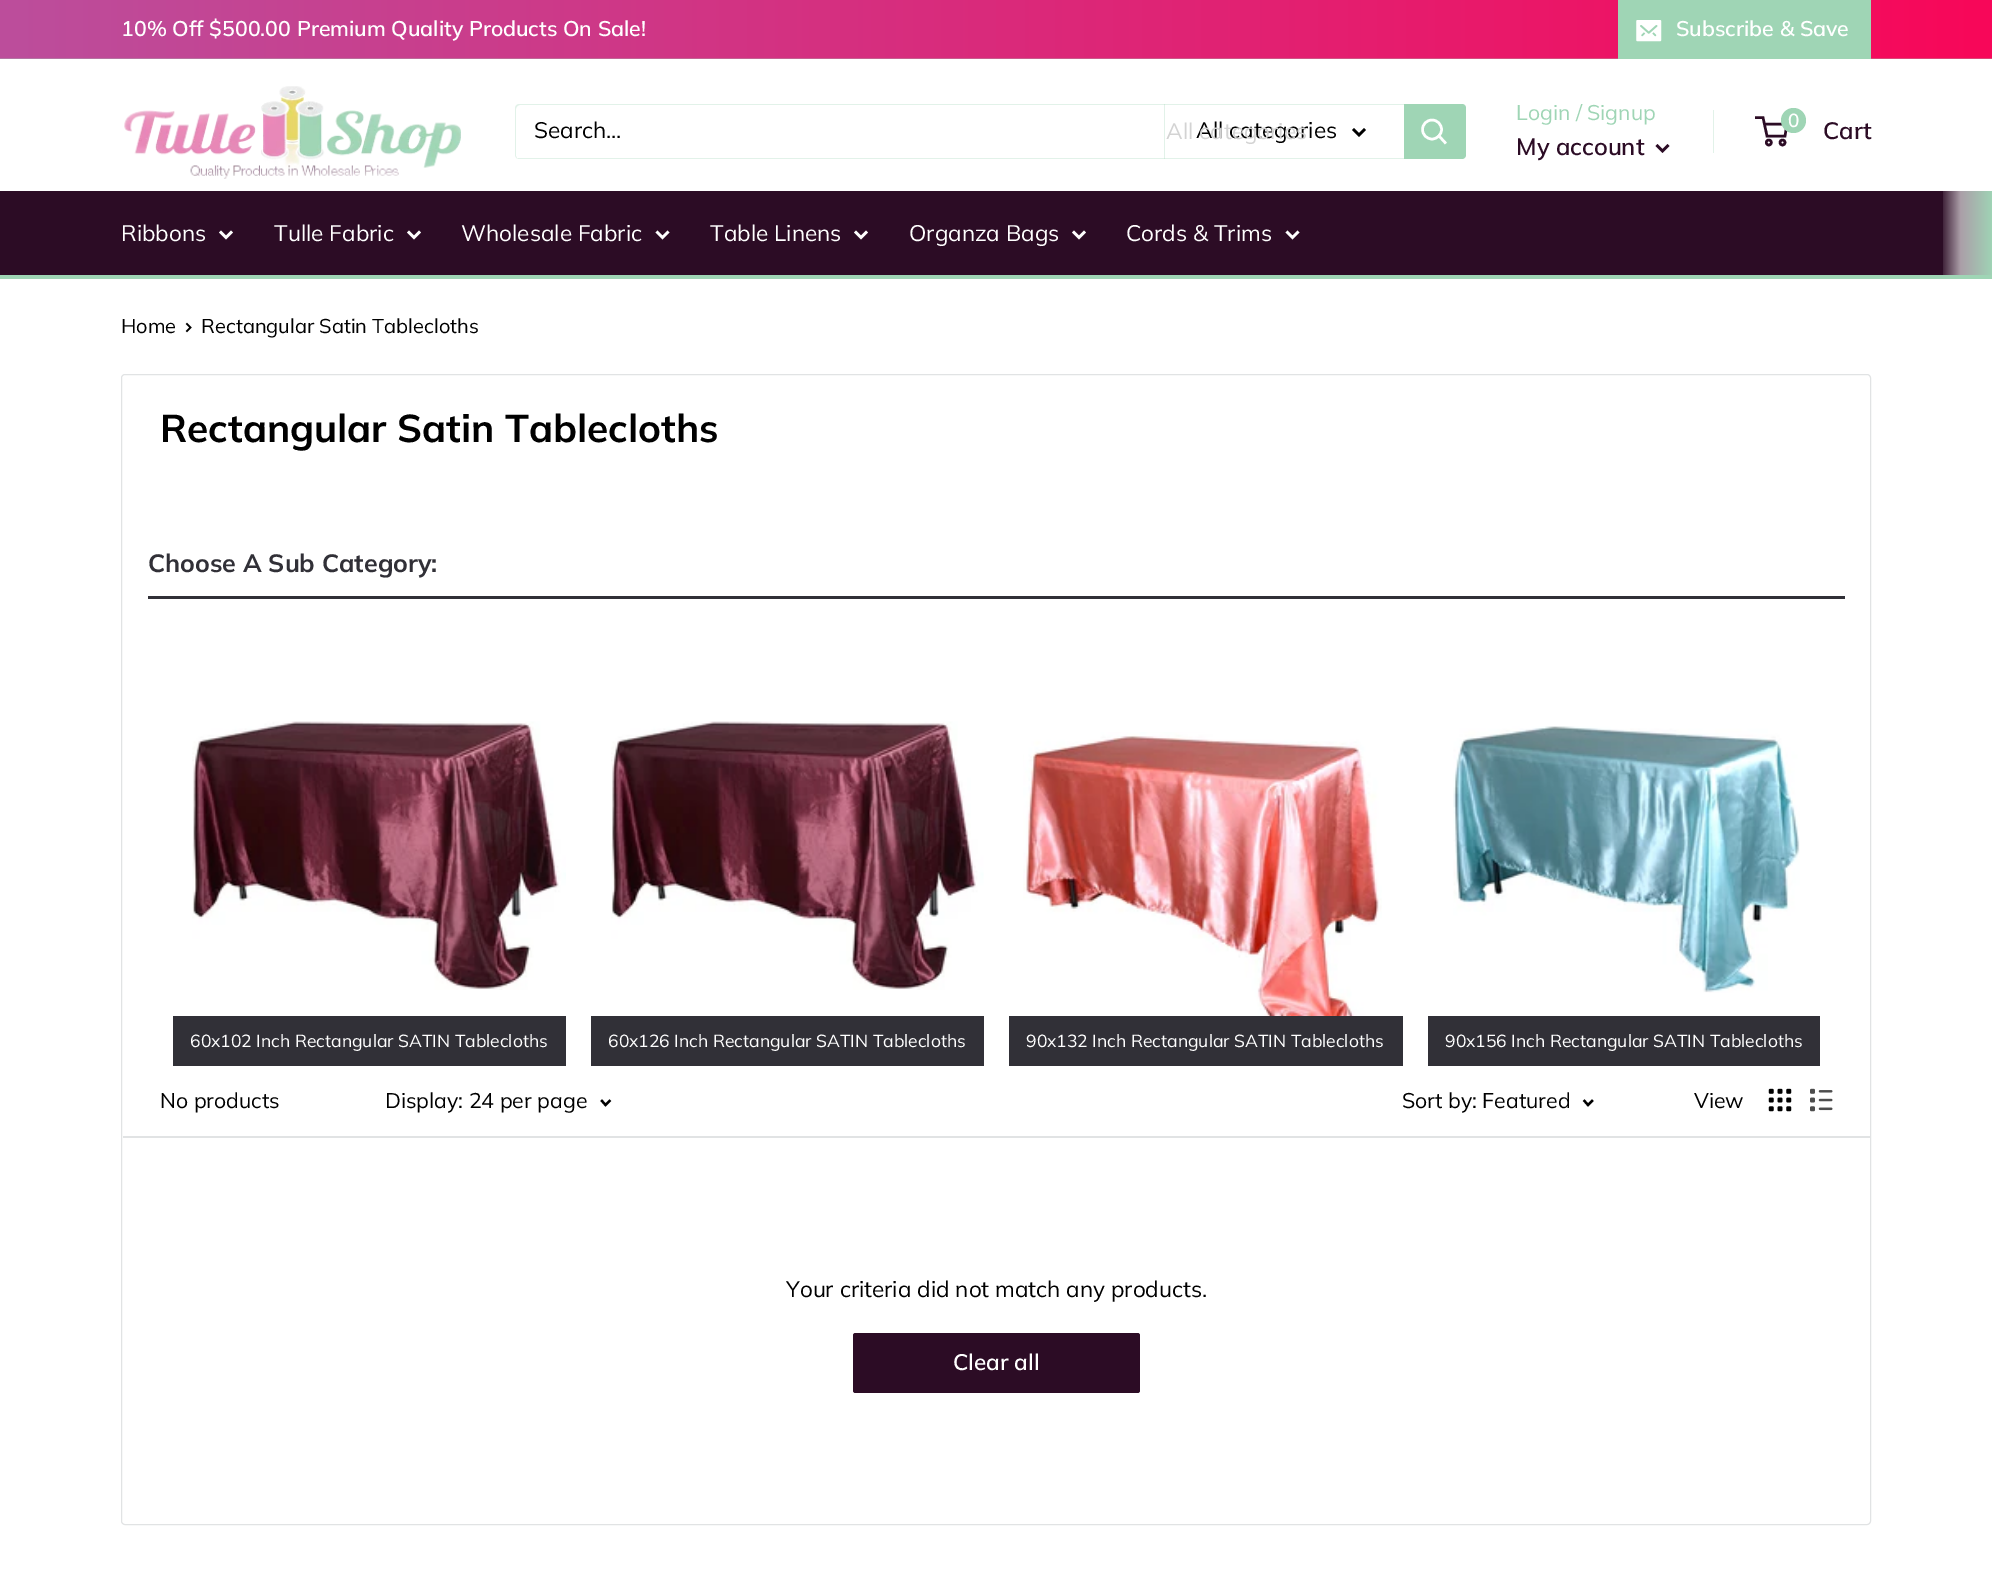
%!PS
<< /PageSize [1992 1593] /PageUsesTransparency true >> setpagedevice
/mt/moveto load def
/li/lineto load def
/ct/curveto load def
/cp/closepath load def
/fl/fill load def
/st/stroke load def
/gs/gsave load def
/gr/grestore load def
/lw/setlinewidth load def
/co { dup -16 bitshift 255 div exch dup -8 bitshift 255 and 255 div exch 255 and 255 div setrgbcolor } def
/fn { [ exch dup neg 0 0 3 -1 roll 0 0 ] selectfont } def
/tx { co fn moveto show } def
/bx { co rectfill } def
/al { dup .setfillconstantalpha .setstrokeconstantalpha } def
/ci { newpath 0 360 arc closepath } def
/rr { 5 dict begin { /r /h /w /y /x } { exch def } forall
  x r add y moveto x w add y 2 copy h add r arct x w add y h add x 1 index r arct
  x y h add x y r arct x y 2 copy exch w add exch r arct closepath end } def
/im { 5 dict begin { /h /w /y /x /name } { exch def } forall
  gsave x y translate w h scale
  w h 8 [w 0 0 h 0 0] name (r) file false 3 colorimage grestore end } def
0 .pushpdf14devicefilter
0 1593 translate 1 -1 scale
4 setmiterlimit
0 0 1992 1593 16#FFFFFF bx
gs 0 0 mt 1992 0 li 1992 58 li 0 58 li cp clip newpath
<< /ShadingType 2 /ColorSpace /DeviceRGB /Coords [0 29 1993 29] /Extend [true true] /Function << /FunctionType 2 /Domain [0 1] /C0 [.737 .306 .612] /C1 [.973 .027 .349] /N 1 >> >> shfill gr
gs 0 58 mt 1992 58 li 1992 59 li 0 59 li cp clip newpath
<< /ShadingType 2 /ColorSpace /DeviceRGB /Coords [0 29 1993 29] /Extend [true true] /Function << /FunctionType 2 /Domain [0 1] /C0 [.702 .467 .643] /C1 [.867 .271 .459] /N 1 >> >> shfill gr
1618 0 253 59 16#9FD5B5 bx
(media/1.raw) 1636 20 26 22 im
(media/2.raw) 124 86 337 93 im
16#E2F2E9 co
516 158 mt 517 158 518 159 519 159 ct 1462 159 li 1464 159 1466 157 1466 155 ct 1466 108 li 1466 107 1466 106 1465 105 ct 1465 154 li 1465 156 1463 158 1461 158 ct 518 158 li cp fl
520 105 mt 1465 105 li 1464 104 1463 104 1462 104 ct 519 104 li 517 104 515 106 515 108 ct 515 155 li 515 156 516 158 517 158 ct 516 156 li 516 109 li 516 107 518 105 520 105 ct cp fl
0.3 al
1164 104 1 55 16#9FD5B5 bx
1 al
16#000000 co
2.5 lw
2 setlinecap
1364 130 mt 1359 135 li 1354 130 li st
16#9FD5B5 co
1404 104 mt 1462 104 li 1464 104 1466 106 1466 108 ct 1466 155 li 1466 157 1464 159 1462 159 ct 1404 159 li cp fl
16#FFFFFF co
1445 142.5 mt 1439 136 li st
0 setlinecap
1432 129.5 9.5 ci st
1713 110 1 43 16#E2F2E9 bx
16#2C0C25 co
2 setlinecap
1667.5 146 mt 1662.5 151 li 1657.5 146 li st
0 setlinecap
1768.8 142.5 2.5 ci st
1782.5 142.5 2.5 ci st
1764 124 mt 1787 124 li 1785 136 li 1767 136 li 1763 117.5 li 1755 117.5 li st
16#9FD5B5 co
1793.5 120.5 12.5 ci fl
0 191 1943 84 16#2C0C25 bx
0 275 1992 4 16#9FD5B5 bx
16#FFFFFF co
2 setlinecap
231 232.5 mt 226 237.5 li 221 232.5 li st
419 232.5 mt 414 237.5 li 409 232.5 li st
667.5 232.5 mt 662.5 237.5 li 657.5 232.5 li st
866 232.5 mt 861 237.5 li 856 232.5 li st
1084 232.5 mt 1079 237.5 li 1074 232.5 li st
1297.5 232.5 mt 1292.5 237.5 li 1287.5 232.5 li st
gs 1943 191 mt 1992 191 li 1992 275 li 1943 275 li cp clip newpath
<< /ShadingType 2 /ColorSpace /DeviceRGB /Coords [1943 233 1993 233] /Extend [true true] /Function << /FunctionType 3 /Domain [0 1] /Functions [<< /FunctionType 2 /Domain [0 1] /C0 [.255 .141 .231] /C1 [.671 .62 .659] /N 1 >> << /FunctionType 2 /Domain [0 1] /C0 [.671 .62 .659] /C1 [.624 .835 .71] /N 1 >>] /Bounds [.35] /Encode [0 1 0 1] >> >> shfill gr
16#000000 co
1.7 lw
187 324 mt 190.5 327.5 li 187 331 li st
16#E1E3E4 co
1 lw
0 setlinecap
121.5 374.5 1749 1150 3.5 rr st
148 596 1697 3 16#313037 bx
(media/3.raw) 192 721 374 269 im
173 1016 393 50 16#313037 bx
(media/4.raw) 611 721 373 269 im
591 1016 393 50 16#313037 bx
(media/5.raw) 1023 732 359 284 im
1009 1016 394 50 16#313037 bx
(media/6.raw) 1453 726 347 267 im
1428 1016 392 50 16#313037 bx
123 1136 1747 2 16#E1E3E4 bx
16#000000 co
2.3 lw
2 setlinecap
609.5 1101 mt 605.5 1105 li 602 1101 li st
1592 1101 mt 1588 1105 li 1584.5 1101 li st
(media/7.raw) 1768 1088 24 24 im
(media/8.raw) 1810 1088 23 24 im
16#2C0C25 co
853 1333 287 60 2.5 rr fl
(10% Off $500.00 Premium Quality Products On Sale!) 121 36 /Muli-SemiBold 21.25 16#FFFFFF tx
(Subscribe & Save) 1676 36 /Muli-SemiBold 21.25 16#FFFFFF tx
(Search...) 534 138 /Muli-Regular 22.5 16#000000 tx
(All categories) 1196 138 /Muli-Regular 22.5 16#000000 tx
(All categories) 1166 139 /Muli-Regular 22.5 16#D3D3D3 tx
(Login / Signup) 1516 120 /Muli-Regular 21.25 16#9FD5B5 tx
(My account) 1516 155 /Muli-SemiBold 23.75 16#2C0C25 tx
(0) 1788 127 /Muli-SemiBold 19 16#FFFFFF tx
(Cart) 1823 139 /Muli-SemiBold 23.75 16#2C0C25 tx
(Ribbons) 121 241 /Muli-Regular 22.5 16#FFFFFF tx
(Tulle Fabric) 274 241 /Muli-Regular 22.5 16#FFFFFF tx
(Wholesale Fabric) 461 241 /Muli-Regular 22.5 16#FFFFFF tx
(Table Linens) 710 241 /Muli-Regular 22.5 16#FFFFFF tx
(Organza Bags) 909 241 /Muli-Regular 22.5 16#FFFFFF tx
(Cords & Trims) 1126 241 /Muli-Regular 22.5 16#FFFFFF tx
(Home) 121 333 /Muli-Regular 20 16#000000 tx
(Rectangular Satin Tablecloths) 201 333 /Muli-Regular 20 16#000000 tx
(Rectangular Satin Tablecloths) 160 442 /Muli-Bold 38.75 16#000000 tx
(Choose A Sub Category:) 148 572 /Muli-Bold 25 16#313037 tx
(60x102 Inch Rectangular SATIN Tablecloths) 190 1047 /Muli-Regular 17.5 16#FFFFFF tx
(60x126 Inch Rectangular SATIN Tablecloths) 608 1047 /Muli-Regular 17.5 16#FFFFFF tx
(90x132 Inch Rectangular SATIN Tablecloths) 1026 1047 /Muli-Regular 17.5 16#FFFFFF tx
(90x156 Inch Rectangular SATIN Tablecloths) 1445 1047 /Muli-Regular 17.5 16#FFFFFF tx
(No products) 160 1108 /Muli-Regular 21.25 16#000000 tx
(Display: 24 per page) 385 1108 /Muli-Regular 21.25 16#000000 tx
(Sort by: Featured) 1402 1108 /Muli-Regular 21.25 16#000000 tx
(View) 1694 1108 /Muli-Regular 21.25 16#000000 tx
(Your criteria did not match any products.) 786 1297 /Muli-Regular 22.5 16#000000 tx
(Clear all) 953 1370 /Muli-SemiBold 22.5 16#FFFFFF tx
.poppdf14devicefilter showpage
